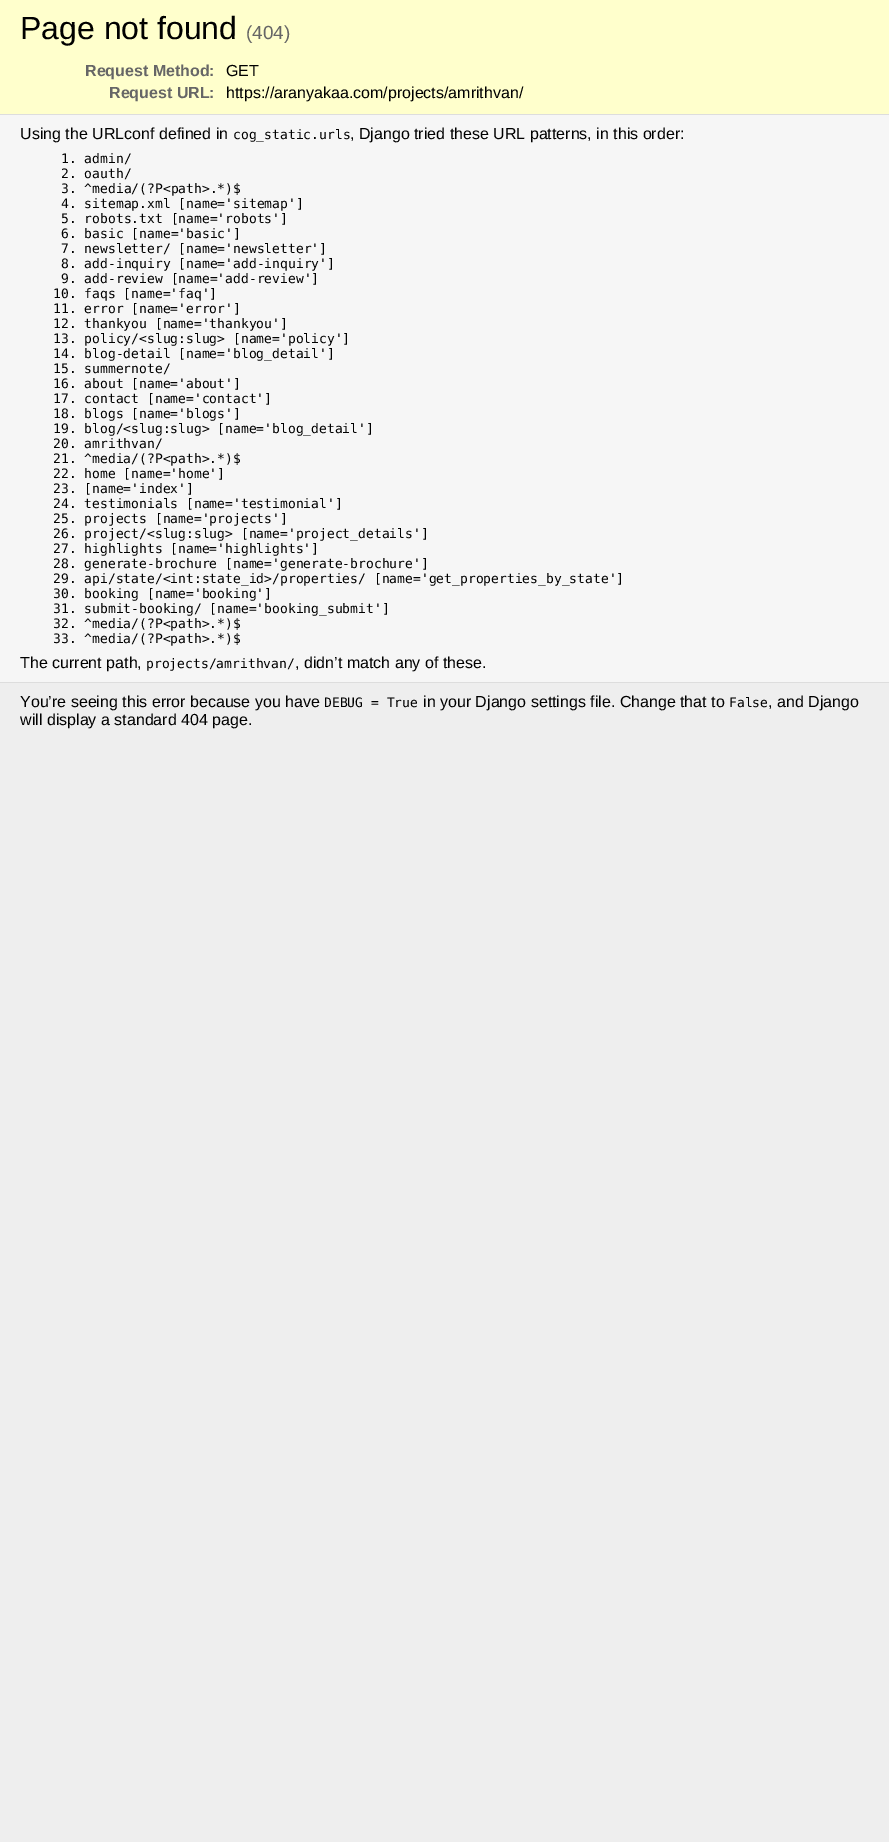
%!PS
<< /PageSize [889 1842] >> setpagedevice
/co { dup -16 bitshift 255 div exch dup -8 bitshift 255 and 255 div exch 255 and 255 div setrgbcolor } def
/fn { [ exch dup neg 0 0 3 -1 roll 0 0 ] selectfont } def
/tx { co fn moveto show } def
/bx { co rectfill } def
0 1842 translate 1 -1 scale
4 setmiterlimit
0 0 889 1842 16#EEEEEE bx
0 0 889 114 16#FFFFCC bx
0 114 889 1 16#DDDDDD bx
0 115 889 567 16#F6F6F6 bx
0 682 889 1 16#DDDDDD bx
(Page not found) 20 39 /LiberationSans-Regular 32 16#000000 tx
(\(404\)) 246 39 /LiberationSans-Regular 19 16#666666 tx
(Request Method:) 85 76 /LiberationSans-Bold 16 16#666666 tx
(GET) 226 76 /LiberationSans-Regular 16 16#000000 tx
(Request URL:) 109 98 /LiberationSans-Bold 16 16#666666 tx
(https://aranyakaa.com/projects/amrithvan/) 226 98 /LiberationSans-Regular 16 16#000000 tx
(Using the URLconf defined in) 20 139 /LiberationSans-Regular 16 16#000000 tx
(cog_static.urls) 233 139 /DejaVuSansMono-Regular 13 16#000000 tx
(, Django tried these URL patterns, in this order:) 350 139 /LiberationSans-Regular 16 16#000000 tx
(1. admin/) 61 163 /DejaVuSansMono-Regular 13 16#000000 tx
(2. oauth/) 61 178 /DejaVuSansMono-Regular 13 16#000000 tx
(3. ^media/\(?P<path>.*\)$) 61 193 /DejaVuSansMono-Regular 13 16#000000 tx
(4. sitemap.xml [name='sitemap']) 61 208 /DejaVuSansMono-Regular 13 16#000000 tx
(5. robots.txt [name='robots']) 61 223 /DejaVuSansMono-Regular 13 16#000000 tx
(6. basic [name='basic']) 61 238 /DejaVuSansMono-Regular 13 16#000000 tx
(7. newsletter/ [name='newsletter']) 61 253 /DejaVuSansMono-Regular 13 16#000000 tx
(8. add-inquiry [name='add-inquiry']) 61 268 /DejaVuSansMono-Regular 13 16#000000 tx
(9. add-review [name='add-review']) 61 283 /DejaVuSansMono-Regular 13 16#000000 tx
(10. faqs [name='faq']) 53 298 /DejaVuSansMono-Regular 13 16#000000 tx
(11. error [name='error']) 53 313 /DejaVuSansMono-Regular 13 16#000000 tx
(12. thankyou [name='thankyou']) 53 328 /DejaVuSansMono-Regular 13 16#000000 tx
(13. policy/<slug:slug> [name='policy']) 53 343 /DejaVuSansMono-Regular 13 16#000000 tx
(14. blog-detail [name='blog_detail']) 53 358 /DejaVuSansMono-Regular 13 16#000000 tx
(15. summernote/) 53 373 /DejaVuSansMono-Regular 13 16#000000 tx
(16. about [name='about']) 53 388 /DejaVuSansMono-Regular 13 16#000000 tx
(17. contact [name='contact']) 53 403 /DejaVuSansMono-Regular 13 16#000000 tx
(18. blogs [name='blogs']) 53 418 /DejaVuSansMono-Regular 13 16#000000 tx
(19. blog/<slug:slug> [name='blog_detail']) 53 433 /DejaVuSansMono-Regular 13 16#000000 tx
(20. amrithvan/) 53 448 /DejaVuSansMono-Regular 13 16#000000 tx
(21. ^media/\(?P<path>.*\)$) 53 463 /DejaVuSansMono-Regular 13 16#000000 tx
(22. home [name='home']) 53 478 /DejaVuSansMono-Regular 13 16#000000 tx
(23. [name='index']) 53 493 /DejaVuSansMono-Regular 13 16#000000 tx
(24. testimonials [name='testimonial']) 53 508 /DejaVuSansMono-Regular 13 16#000000 tx
(25. projects [name='projects']) 53 523 /DejaVuSansMono-Regular 13 16#000000 tx
(26. project/<slug:slug> [name='project_details']) 53 538 /DejaVuSansMono-Regular 13 16#000000 tx
(27. highlights [name='highlights']) 53 553 /DejaVuSansMono-Regular 13 16#000000 tx
(28. generate-brochure [name='generate-brochure']) 53 568 /DejaVuSansMono-Regular 13 16#000000 tx
(29. api/state/<int:state_id>/properties/ [name='get_properties_by_state']) 53 583 /DejaVuSansMono-Regular 13 16#000000 tx
(30. booking [name='booking']) 53 598 /DejaVuSansMono-Regular 13 16#000000 tx
(31. submit-booking/ [name='booking_submit']) 53 613 /DejaVuSansMono-Regular 13 16#000000 tx
(32. ^media/\(?P<path>.*\)$) 53 628 /DejaVuSansMono-Regular 13 16#000000 tx
(33. ^media/\(?P<path>.*\)$) 53 643 /DejaVuSansMono-Regular 13 16#000000 tx
(The current path,) 20 668 /LiberationSans-Regular 16 16#000000 tx
(projects/amrithvan/) 146 668 /DejaVuSansMono-Regular 13 16#000000 tx
(, didn’t match any of these.) 295 668 /LiberationSans-Regular 16 16#000000 tx
(You’re seeing this error because you have) 20 707 /LiberationSans-Regular 16 16#000000 tx
(DEBUG = True) 324 707 /DejaVuSansMono-Regular 13 16#000000 tx
(in your Django settings file. Change that to) 423 707 /LiberationSans-Regular 16 16#000000 tx
(False) 729 707 /DejaVuSansMono-Regular 13 16#000000 tx
(, and Django) 768 707 /LiberationSans-Regular 16 16#000000 tx
(will display a standard 404 page.) 20 725 /LiberationSans-Regular 16 16#000000 tx
showpage
